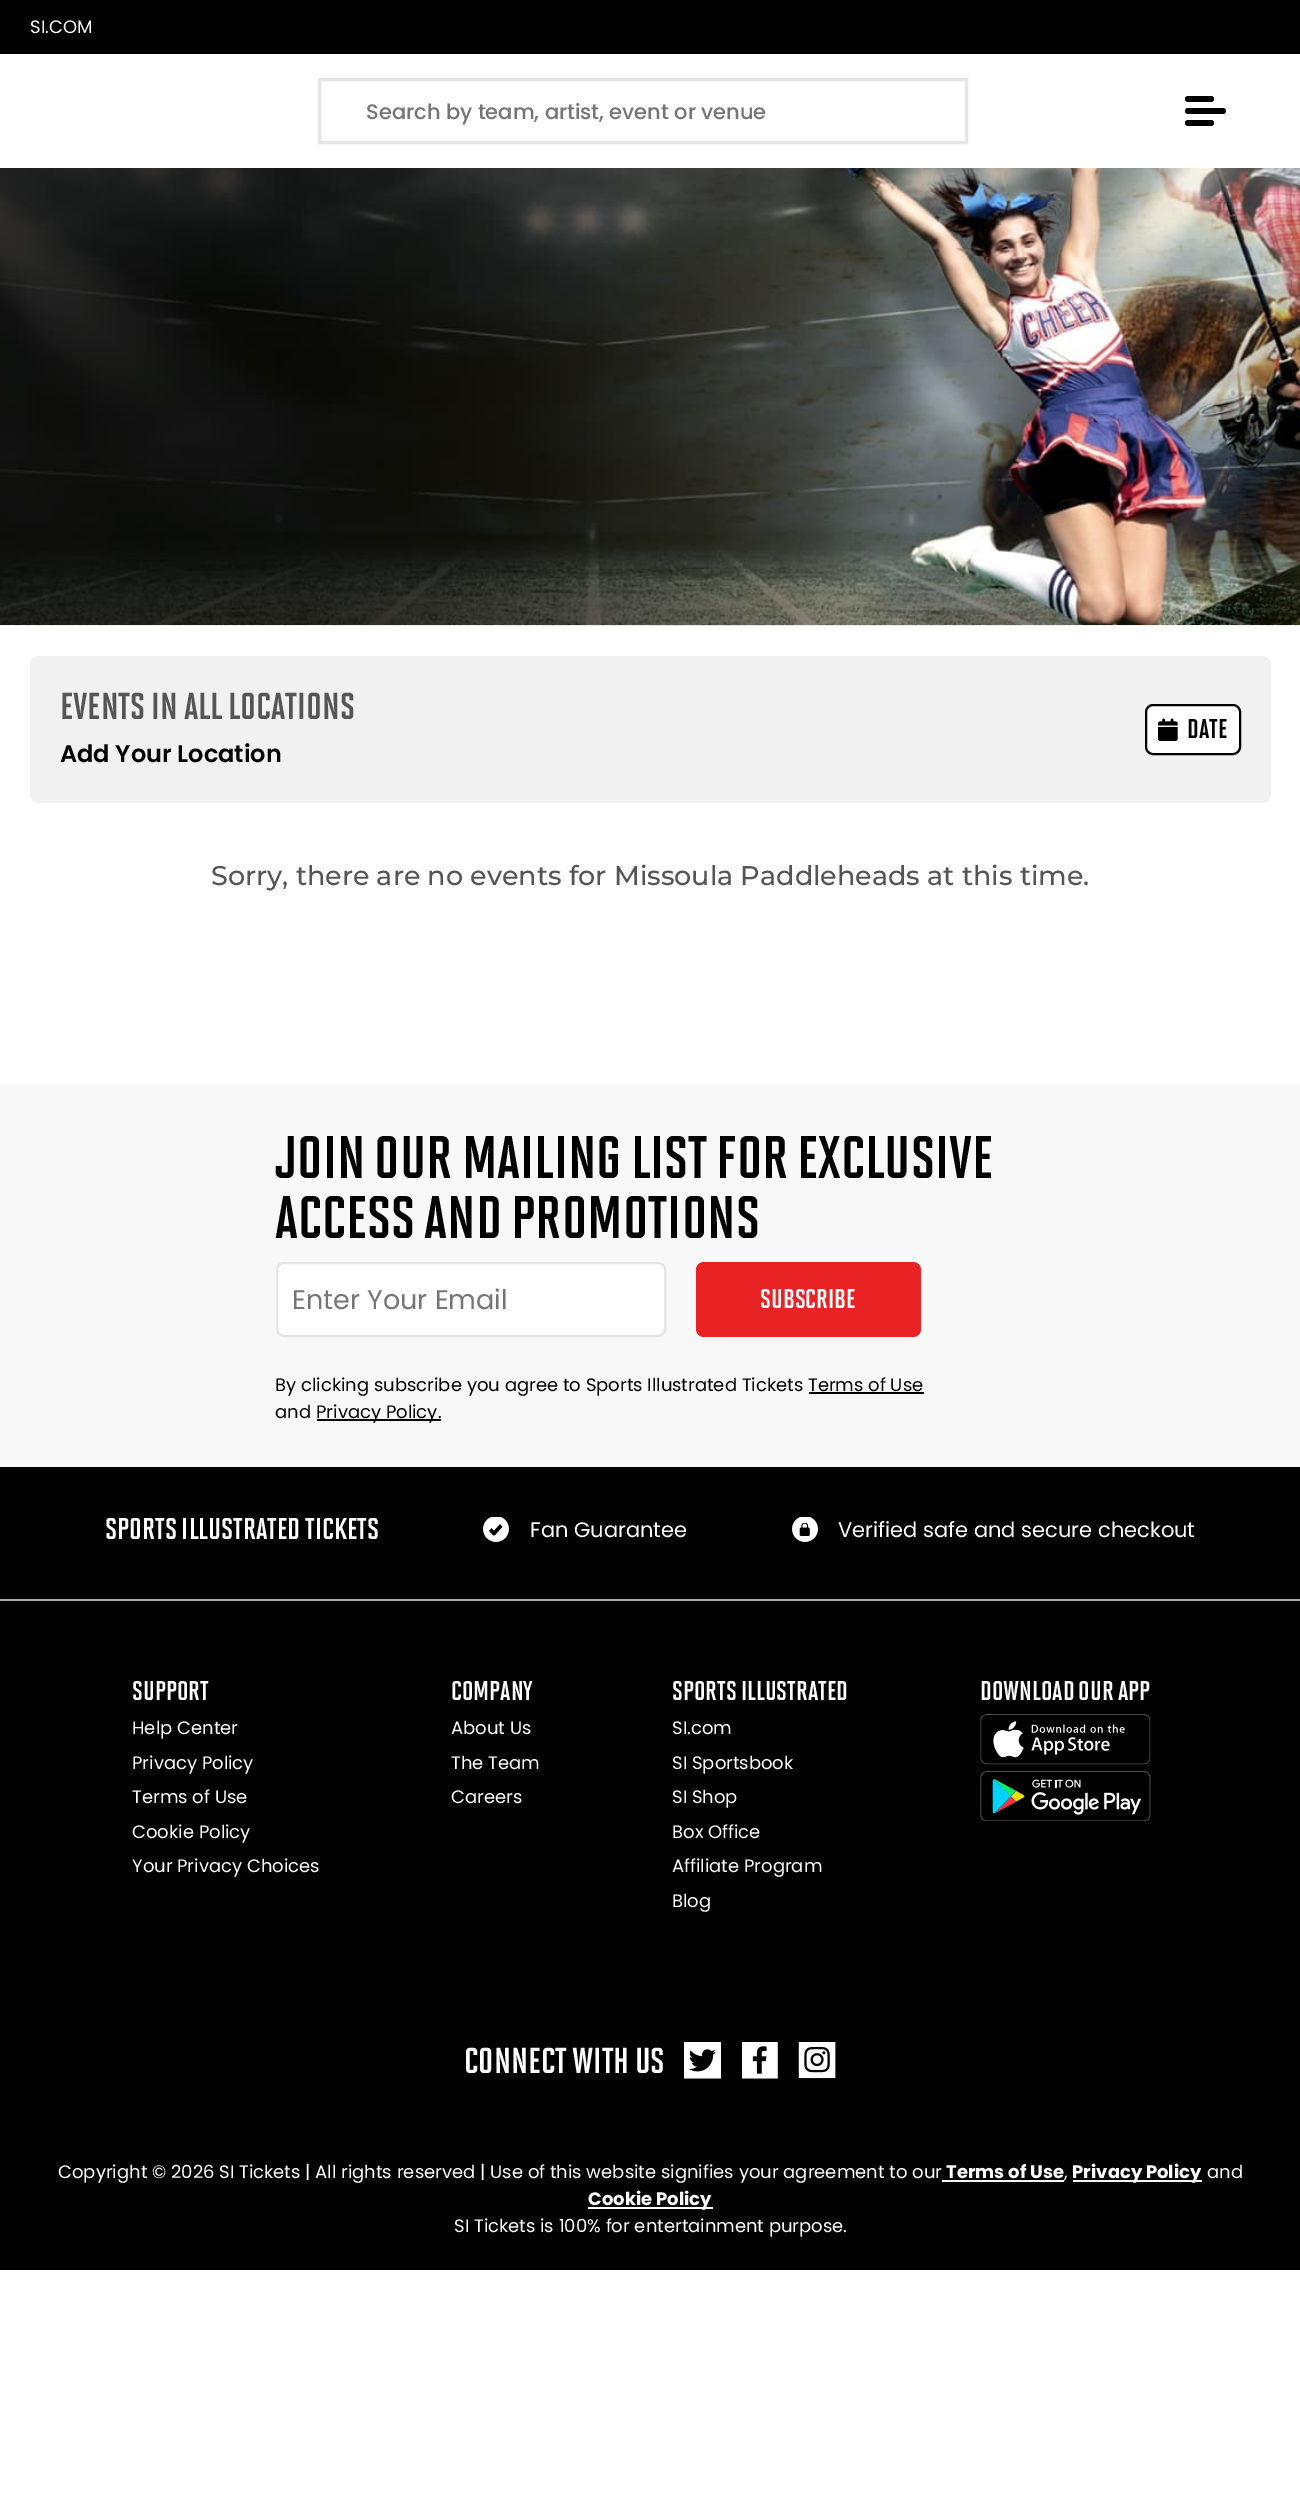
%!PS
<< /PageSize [1300 2505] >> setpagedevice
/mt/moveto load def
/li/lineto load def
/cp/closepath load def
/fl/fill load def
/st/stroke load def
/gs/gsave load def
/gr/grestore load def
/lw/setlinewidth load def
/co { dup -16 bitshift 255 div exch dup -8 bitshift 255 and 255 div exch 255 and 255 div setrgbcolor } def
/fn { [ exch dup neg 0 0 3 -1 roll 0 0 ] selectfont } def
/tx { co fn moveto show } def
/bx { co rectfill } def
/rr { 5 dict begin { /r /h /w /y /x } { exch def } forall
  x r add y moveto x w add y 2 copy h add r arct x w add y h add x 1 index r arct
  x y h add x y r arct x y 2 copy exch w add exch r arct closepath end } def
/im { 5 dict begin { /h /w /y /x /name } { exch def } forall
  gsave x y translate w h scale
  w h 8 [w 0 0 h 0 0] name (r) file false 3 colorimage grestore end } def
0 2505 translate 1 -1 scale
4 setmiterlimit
0 0 1300 2505 16#FFFFFF bx
0 0 1300 54 16#000000 bx
16#E5E5E5 co
3 lw
319.5 79.5 647 63 rectstroke
16#000000 co
1185 96 29 6 3 rr fl
1185 108 41 6 3 rr fl
1185 120 29 6 3 rr fl
(media/1.raw) 0 168 1300 457 im
gs 0 625 mt 1300 625 li 1300 626 li 0 626 li cp clip newpath
<< /ShadingType 2 /ColorSpace /DeviceRGB /Coords [-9 59 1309 604] /Extend [true true] /Function << /FunctionType 3 /Domain [0 1] /Functions [<< /FunctionType 2 /Domain [0 1] /C0 [.945 .945 .945] /C1 [.945 .945 .945] /N 1 >> << /FunctionType 2 /Domain [0 1] /C0 [.945 .945 .945] /C1 [.898 .898 .898] /N 1 >> << /FunctionType 2 /Domain [0 1] /C0 [.898 .898 .898] /C1 [.945 .945 .945] /N 1 >> << /FunctionType 2 /Domain [0 1] /C0 [.945 .945 .945] /C1 [.945 .945 .945] /N 1 >>] /Bounds [.29 .63 .87] /Encode [0 1 0 1 0 1 0 1] >> >> shfill gr
16#F1F1F1 co
30 656 1241 147 9 rr fl
16#FFFFFF co
1146 705 94 49 7 rr gs fl gr
16#000000 co
2 lw
st
(media/2.raw) 1158 718 20 23 im
0 1085 1300 382 16#F8F8F8 bx
16#FFFFFF co
277 1263 388 73 7 rr gs fl gr
16#E5E5E5 co
st
16#E92224 co
696 1262 225 75 8 rr fl
809 1392 115 2 16#000000 bx
317 1419 124 2 16#000000 bx
0 1467 1300 803 16#000000 bx
(media/3.raw) 483 1517 26 25 im
(media/4.raw) 792 1517 26 25 im
0 1599 1300 2 16#A7A7A7 bx
(media/5.raw) 980 1714 171 51 im
(media/6.raw) 980 1771 171 50 im
(media/7.raw) 684 2042 37 37 im
(media/8.raw) 742 2042 36 37 im
(media/9.raw) 798 2042 38 37 im
942 2180 122 2 16#FFFFFF bx
1073 2180 129 2 16#FFFFFF bx
588 2207 125 2 16#FFFFFF bx
(SI.COM) 30 33 /Poppins-Regular 18 16#FFFFFF tx
(Search by team, artist, event or venue) 366 119 /Poppins-Medium 21 16#757575 tx
(EVENTS IN ALL LOCATIONS) 60 719 /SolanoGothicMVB-Bold 37.5 16#555555 tx
(Add Your Location) 60 762 /Poppins-SemiBold 24 16#000000 tx
(DATE) 1187 738 /SolanoGothicMVB-Bold 27 16#000000 tx
(Sorry, there are no events for Missoula Paddleheads at this time.) 211 885 /Montserrat-Medium 27 16#555555 tx
(JOIN OUR MAILING LIST FOR EXCLUSIVE) 275 1178 /SolanoGothicMVB-Bold 60 16#000000 tx
(ACCESS AND PROMOTIONS) 275 1238 /SolanoGothicMVB-Bold 60 16#000000 tx
(Enter Your Email) 292 1309 /Poppins-Regular 27 16#757575 tx
(SUBSCRIBE) 760 1308 /SolanoGothicMVB-Bold 27 16#FFFFFF tx
(By clicking subscribe you agree to Sports Illustrated Tickets Terms of Use) 275 1391 /Poppins-Regular 18 16#000000 tx
(and) 275 1418 /Poppins-Regular 18 16#000000 tx
(Privacy Policy.) 316 1418 /Poppins-Regular 18 16#000000 tx
(SPORTS ILLUSTRATED TICKETS) 105 1539 /SolanoGothicMVB-Bold 30 16#FFFFFF tx
(Fan Guarantee) 530 1537 /Poppins-Regular 21 16#FFFFFF tx
(Verified safe and secure checkout) 838 1537 /Poppins-Regular 21 16#FFFFFF tx
(SUPPORT) 132 1700 /SolanoGothicMVB-Bold 27 16#FFFFFF tx
(Help Center) 132 1734 /Poppins-Regular 18 16#FFFFFF tx
(Privacy Policy) 132 1769 /Poppins-Regular 18 16#FFFFFF tx
(Terms of Use) 132 1803 /Poppins-Regular 18 16#FFFFFF tx
(Cookie Policy) 132 1838 /Poppins-Regular 18 16#FFFFFF tx
(Your Privacy Choices) 132 1872 /Poppins-Regular 18 16#FFFFFF tx
(COMPANY) 451 1700 /SolanoGothicMVB-Bold 27 16#FFFFFF tx
(About Us) 451 1734 /Poppins-Regular 18 16#FFFFFF tx
(The Team) 451 1769 /Poppins-Regular 18 16#FFFFFF tx
(Careers) 451 1803 /Poppins-Regular 18 16#FFFFFF tx
(SPORTS ILLUSTRATED) 672 1700 /SolanoGothicMVB-Bold 27 16#FFFFFF tx
(SI.com) 672 1734 /Poppins-Regular 18 16#FFFFFF tx
(SI Sportsbook) 672 1769 /Poppins-Regular 18 16#FFFFFF tx
(SI Shop) 672 1803 /Poppins-Regular 18 16#FFFFFF tx
(Box Office) 672 1838 /Poppins-Regular 18 16#FFFFFF tx
(Affiliate Program) 672 1872 /Poppins-Regular 18 16#FFFFFF tx
(Blog) 672 1907 /Poppins-Regular 18 16#FFFFFF tx
(DOWNLOAD OUR APP) 980 1700 /SolanoGothicMVB-Bold 27 16#FFFFFF tx
(CONNECT WITH US) 464 2073 /SolanoGothicMVB-Bold 36 16#FFFFFF tx
(Copyright © 2026 SI Tickets | All rights reserved | Use of this website signifies your agreement to our) 58 2178 /Poppins-Regular 18 16#FFFFFF tx
(Terms of Use) 946 2178 /Poppins-Bold 18 16#FFFFFF tx
(,) 1064 2178 /Poppins-Regular 18 16#FFFFFF tx
(Privacy Policy) 1072 2178 /Poppins-Bold 18 16#FFFFFF tx
(and) 1207 2178 /Poppins-Regular 18 16#FFFFFF tx
(Cookie Policy) 588 2205 /Poppins-Bold 18 16#FFFFFF tx
(SI Tickets is 100% for entertainment purpose.) 454 2232 /Poppins-Regular 18 16#FFFFFF tx
showpage
